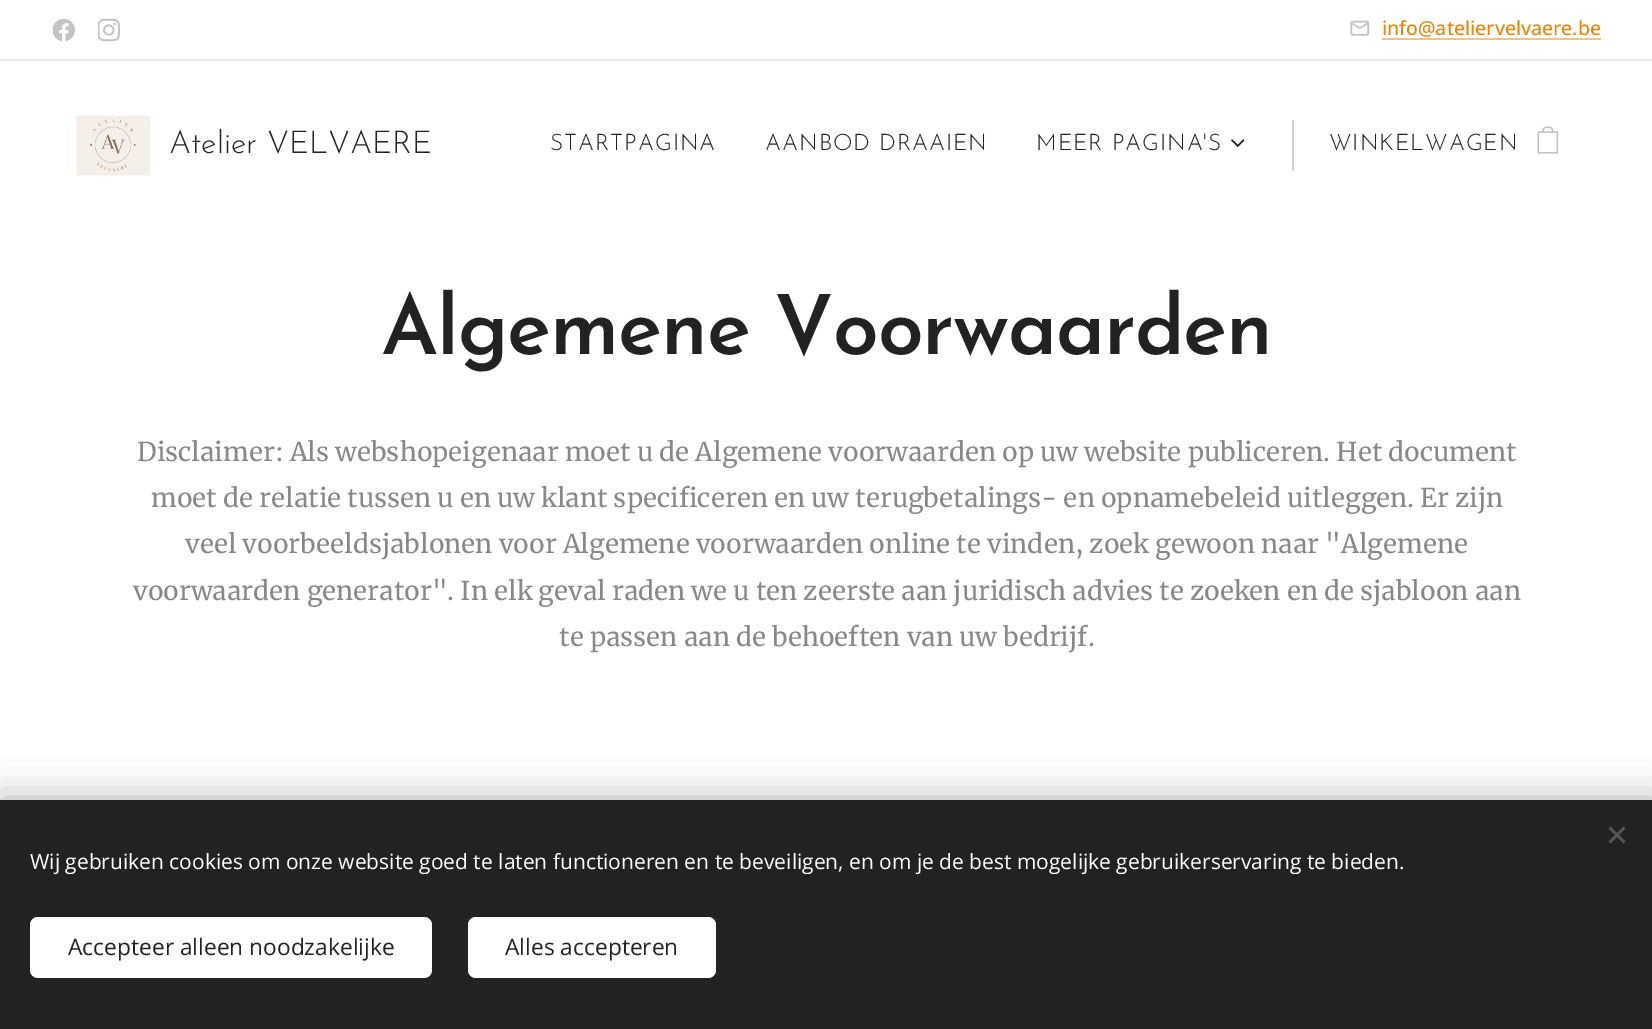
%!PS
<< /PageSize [1652 1029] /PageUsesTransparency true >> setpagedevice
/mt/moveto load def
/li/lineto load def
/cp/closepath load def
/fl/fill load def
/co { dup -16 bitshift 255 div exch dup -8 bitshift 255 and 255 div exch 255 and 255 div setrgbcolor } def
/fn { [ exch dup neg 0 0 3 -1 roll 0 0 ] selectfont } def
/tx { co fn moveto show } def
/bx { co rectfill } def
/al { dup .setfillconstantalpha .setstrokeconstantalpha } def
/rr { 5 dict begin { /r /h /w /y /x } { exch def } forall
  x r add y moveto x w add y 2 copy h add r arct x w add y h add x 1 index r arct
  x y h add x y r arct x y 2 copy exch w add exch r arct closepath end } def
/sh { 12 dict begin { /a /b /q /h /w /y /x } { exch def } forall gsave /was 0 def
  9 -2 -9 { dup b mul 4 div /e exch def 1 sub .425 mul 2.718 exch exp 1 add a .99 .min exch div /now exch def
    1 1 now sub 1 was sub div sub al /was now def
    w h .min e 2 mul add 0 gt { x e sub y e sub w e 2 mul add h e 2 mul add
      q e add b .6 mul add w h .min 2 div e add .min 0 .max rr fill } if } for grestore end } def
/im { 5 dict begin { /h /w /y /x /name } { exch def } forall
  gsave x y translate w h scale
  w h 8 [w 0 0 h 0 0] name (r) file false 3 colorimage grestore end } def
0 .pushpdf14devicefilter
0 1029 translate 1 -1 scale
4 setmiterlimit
0 0 1652 1029 16#FFFFFF bx
(media/1.raw) 53 18 22 23 im
(media/2.raw) 98 18 22 24 im
(media/3.raw) 1350 20 20 16 im
1382 38 219 2 16#F8C082 bx
0 59 1652 2 16#E8E8E8 bx
(media/4.raw) 76 115 74 61 im
(media/5.raw) 1231 139 14 8 im
1292 120 2 51 16#D1D1D1 bx
(media/6.raw) 1537 126 22 28 im
16#000000 co
0 800 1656 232 0 19 .33 sh
0 800 1652 229 16#222222 bx
16#555555 co
1608.5 841.5 mt 1623.5 826.5 li 1625.5 828.5 li 1610.5 843.5 li cp fl
1610.5 826.5 mt 1625.5 841.5 li 1623.5 843.5 li 1608.5 828.5 li cp fl
16#FFFFFF co
30 917 402 61 8 rr fl
468 917 248 61 8 rr fl
(info@ateliervelvaere.be) 1382 35 /OpenSans-Medium 19.5 16#F08105 tx
(Atelier VELVAERE) 169 153 /JosefinSans-Light 31.5 16#222222 tx
/JosefinSans-Light 22.75 fn
550 150 mt .9 0 (STARTPAGINA) ashow
765 150 mt .9 0 (AANBOD DRAAIEN) ashow
1036 150 mt .9 0 (MEER PAGINA'S) ashow
1329 150 mt .9 0 (WINKELWAGEN) ashow
/JosefinSans-SemiBold 82.5 fn
381 354 mt -1.25 0 (Algemene Voorwaarden) ashow
(Disclaimer: Als webshopeigenaar moet u de Algemene voorwaarden op uw website publiceren. Het document) 137 461 /Merriweather-Regular 25.8 16#888888 tx
(moet de relatie tussen u en uw klant specificeren en uw terugbetalings- en opnamebeleid uitleggen. Er zijn) 151 507 /Merriweather-Regular 25.8 16#888888 tx
(veel voorbeeldsjablonen voor Algemene voorwaarden online te vinden, zoek gewoon naar "Algemene) 185 553 /Merriweather-Regular 25.8 16#888888 tx
(voorwaarden generator". In elk geval raden we u ten zeerste aan juridisch advies te zoeken en de sjabloon aan) 133 600 /Merriweather-Regular 25.8 16#888888 tx
(te passen aan de behoeften van uw bedrijf.) 559 646 /Merriweather-Regular 25.8 16#888888 tx
(Wij gebruiken cookies om onze website goed te laten functioneren en te beveiligen, en om je de best mogelijke gebruikerservaring te bieden.) 30 869 /OpenSans-Regular 21 16#FFFFFF tx
(Accepteer alleen noodzakelijke) 68 955 /OpenSans-Regular 22.75 16#222222 tx
(Alles accepteren) 505 955 /OpenSans-Regular 22.75 16#222222 tx
.poppdf14devicefilter showpage
